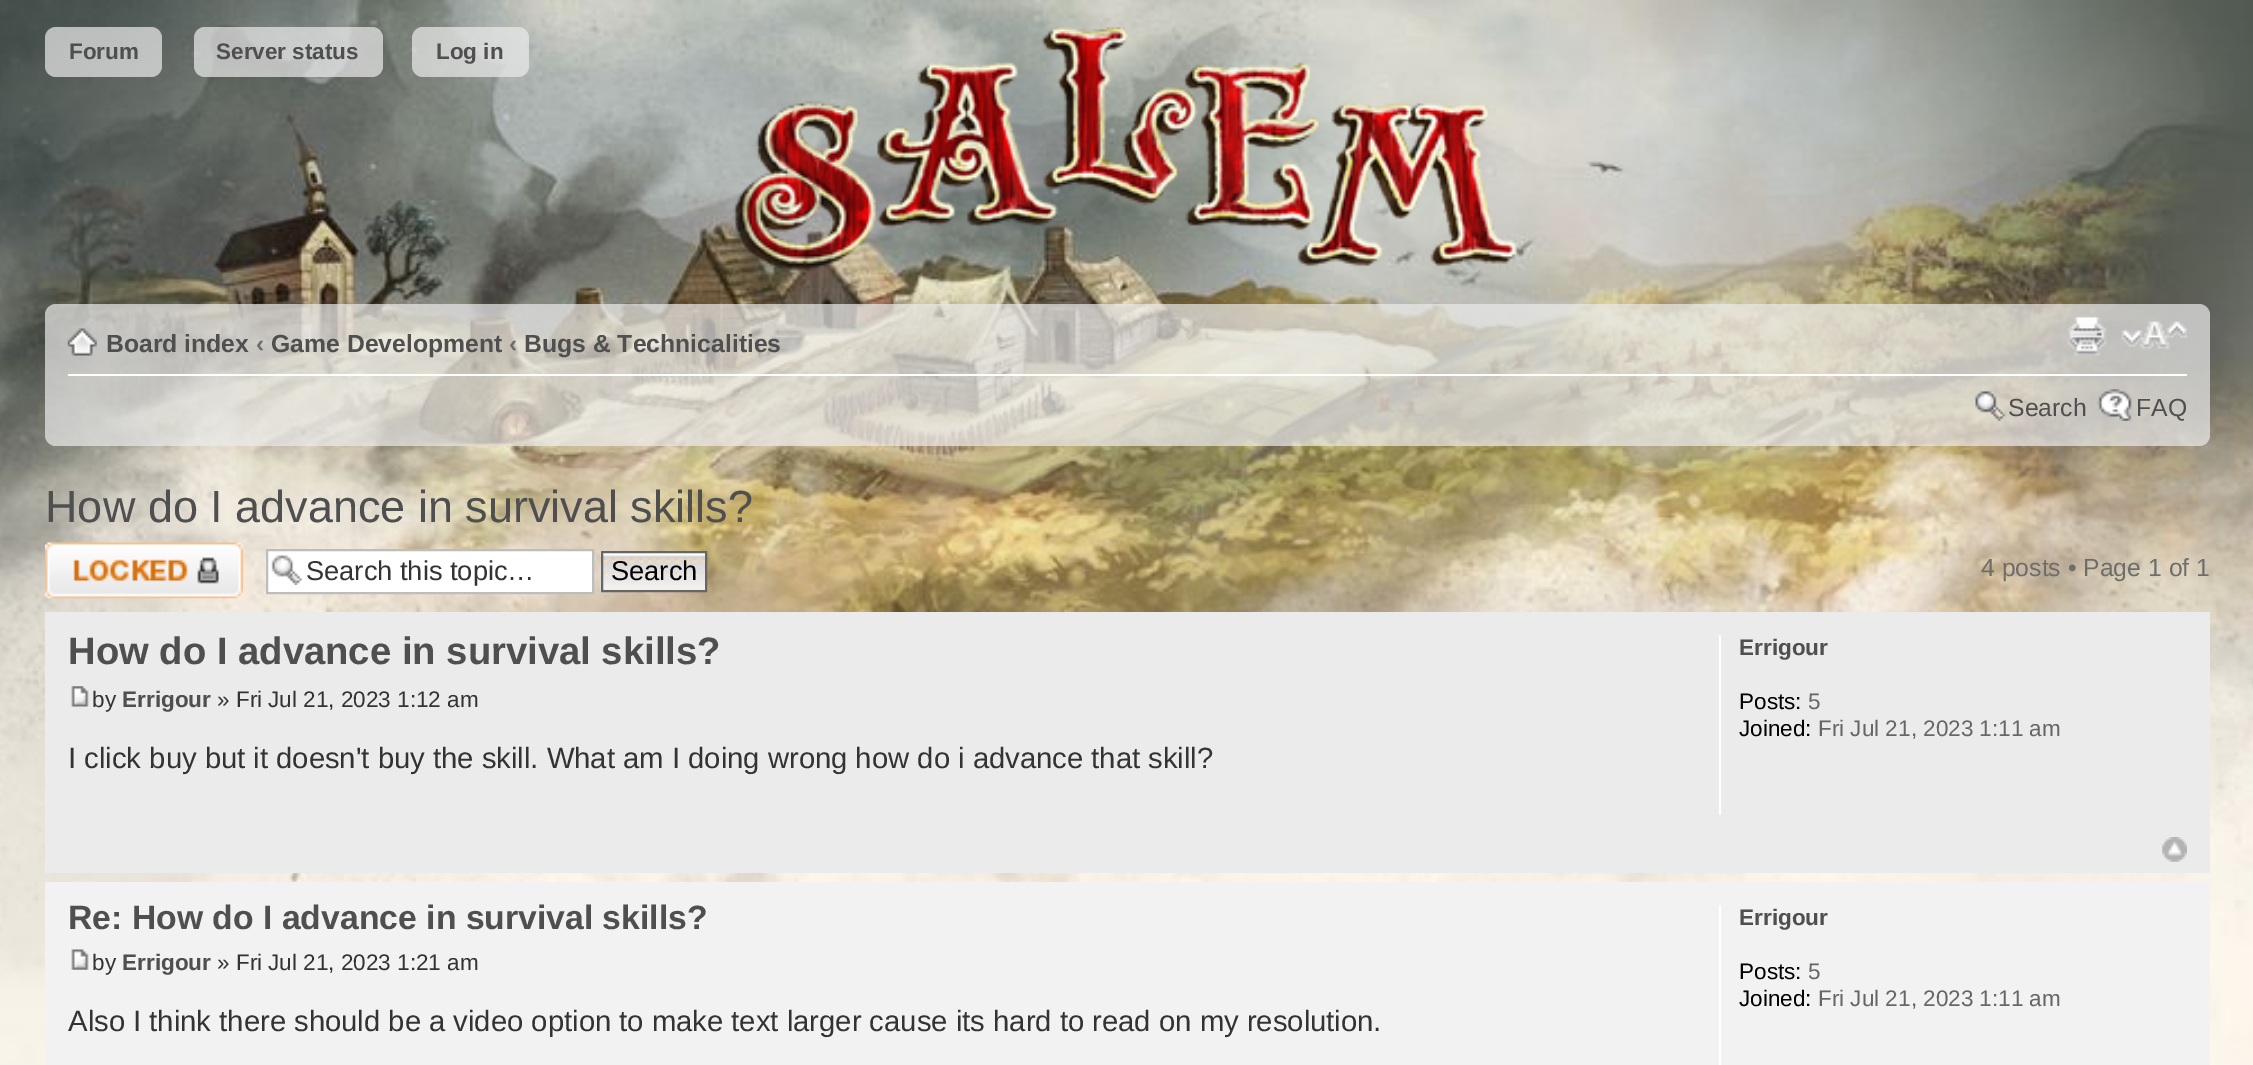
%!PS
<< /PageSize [2253 1065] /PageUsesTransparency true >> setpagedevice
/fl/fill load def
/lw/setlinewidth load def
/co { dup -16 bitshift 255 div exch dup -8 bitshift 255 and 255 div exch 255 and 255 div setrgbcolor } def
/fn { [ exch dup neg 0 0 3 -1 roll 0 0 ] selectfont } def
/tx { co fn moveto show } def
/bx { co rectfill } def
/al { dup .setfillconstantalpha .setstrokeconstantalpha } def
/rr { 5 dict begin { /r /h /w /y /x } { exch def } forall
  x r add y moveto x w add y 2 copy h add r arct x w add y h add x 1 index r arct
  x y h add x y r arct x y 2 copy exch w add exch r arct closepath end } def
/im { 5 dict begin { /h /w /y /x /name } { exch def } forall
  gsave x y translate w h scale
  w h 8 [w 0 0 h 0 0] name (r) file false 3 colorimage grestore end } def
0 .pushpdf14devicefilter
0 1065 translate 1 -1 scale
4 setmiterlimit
0 0 2253 1065 16#FFFFFF bx
(media/1.raw) 0 0 2253 1065 im
(media/2.raw) 733 27 785 244 im
0.7 al
16#EBEBEB co
45 27 117 50 11 rr fl
194 27 189 50 11 rr fl
412 27 117 50 11 rr fl
45 304 2165 142 11 rr fl
1 al
68 374 2119 2 16#FFFFFF bx
(media/3.raw) 67 328 30 28 im
(media/4.raw) 2067 316 40 40 im
(media/5.raw) 2121 321 66 29 im
(media/6.raw) 1973 391 33 30 im
(media/7.raw) 2097 389 36 32 im
(media/8.raw) 45 542 198 57 im
268 551 324 41 16#FFFFFF bx
(media/9.raw) 271 555 32 30 im
16#BDBDBD co
2 lw
267 550 326 43 rectstroke
603 553 102 1 16#FAFAFA bx
(media/10.raw) 600 553 105 39 im
16#666666 co
602 552 104 39 rectstroke
45 612 2165 261 16#EBEBEB bx
(media/11.raw) 71 686 18 21 im
1719 635 2 180 16#FFFFFF bx
(media/12.raw) 2162 837 25 25 im
45 882 2165 183 16#F2F2F2 bx
(media/13.raw) 71 949 18 21 im
1719 905 2 160 16#FFFFFF bx
(Forum) 69 59 /LiberationSans-Bold 22.5 16#4F4F4F tx
(Server status) 216 59 /LiberationSans-Bold 22.5 16#4F4F4F tx
(Log in) 436 59 /LiberationSans-Bold 22.5 16#4F4F4F tx
(Board index) 106 352 /LiberationSans-Bold 24.75 16#4F4F4F tx
(‹) 256 352 /LiberationSans-Bold 24.75 16#6D6D6D tx
(Game Development) 271 352 /LiberationSans-Bold 24.75 16#4F4F4F tx
(‹) 509 352 /LiberationSans-Bold 24.75 16#6D6D6D tx
(Bugs & Technicalities) 524 352 /LiberationSans-Bold 24.75 16#4F4F4F tx
(Search) 2008 416 /LiberationSans-Regular 24.75 16#4F4F4F tx
(FAQ) 2136 416 /LiberationSans-Regular 24.75 16#4F4F4F tx
(How do I advance in survival skills?) 45 522 /LiberationSans-Regular 45 16#4F4F4F tx
(Search this topic…) 306 580 /LiberationSans-Regular 27.25 16#333333 tx
(Search) 611 580 /LiberationSans-Regular 27.25 16#000000 tx
(4 posts • Page 1 of 1) 1981 576 /LiberationSans-Regular 24.75 16#6D6D6D tx
(How do I advance in survival skills?) 68 664 /LiberationSans-Bold 38.25 16#4F4F4F tx
(by) 92 707 /LiberationSans-Regular 22.5 16#333333 tx
(Errigour) 122 707 /LiberationSans-Bold 22.5 16#4F4F4F tx
(» Fri Jul 21, 2023 1:12 am) 217 707 /LiberationSans-Regular 22.5 16#333333 tx
(I click buy but it doesn't buy the skill. What am I doing wrong how do i advance that skill?) 68 768 /LiberationSans-Regular 29.25 16#333333 tx
(Errigour) 1739 655 /LiberationSans-Bold 22.5 16#4F4F4F tx
(Posts:) 1739 709 /LiberationSans-Regular 22.5 16#000000 tx
(5) 1808 709 /LiberationSans-Regular 22.5 16#666666 tx
(Joined:) 1739 736 /LiberationSans-Regular 22.5 16#000000 tx
(Fri Jul 21, 2023 1:11 am) 1818 736 /LiberationSans-Regular 22.5 16#666666 tx
(Re: How do I advance in survival skills?) 68 929 /LiberationSans-Bold 33.75 16#4F4F4F tx
(by) 92 970 /LiberationSans-Regular 22.5 16#333333 tx
(Errigour) 122 970 /LiberationSans-Bold 22.5 16#4F4F4F tx
(» Fri Jul 21, 2023 1:21 am) 217 970 /LiberationSans-Regular 22.5 16#333333 tx
(Also I think there should be a video option to make text larger cause its hard to read on my resolution.) 68 1031 /LiberationSans-Regular 29.25 16#333333 tx
(Errigour) 1739 925 /LiberationSans-Bold 22.5 16#4F4F4F tx
(Posts:) 1739 979 /LiberationSans-Regular 22.5 16#000000 tx
(5) 1808 979 /LiberationSans-Regular 22.5 16#666666 tx
(Joined:) 1739 1006 /LiberationSans-Regular 22.5 16#000000 tx
(Fri Jul 21, 2023 1:11 am) 1818 1006 /LiberationSans-Regular 22.5 16#666666 tx
.poppdf14devicefilter showpage
